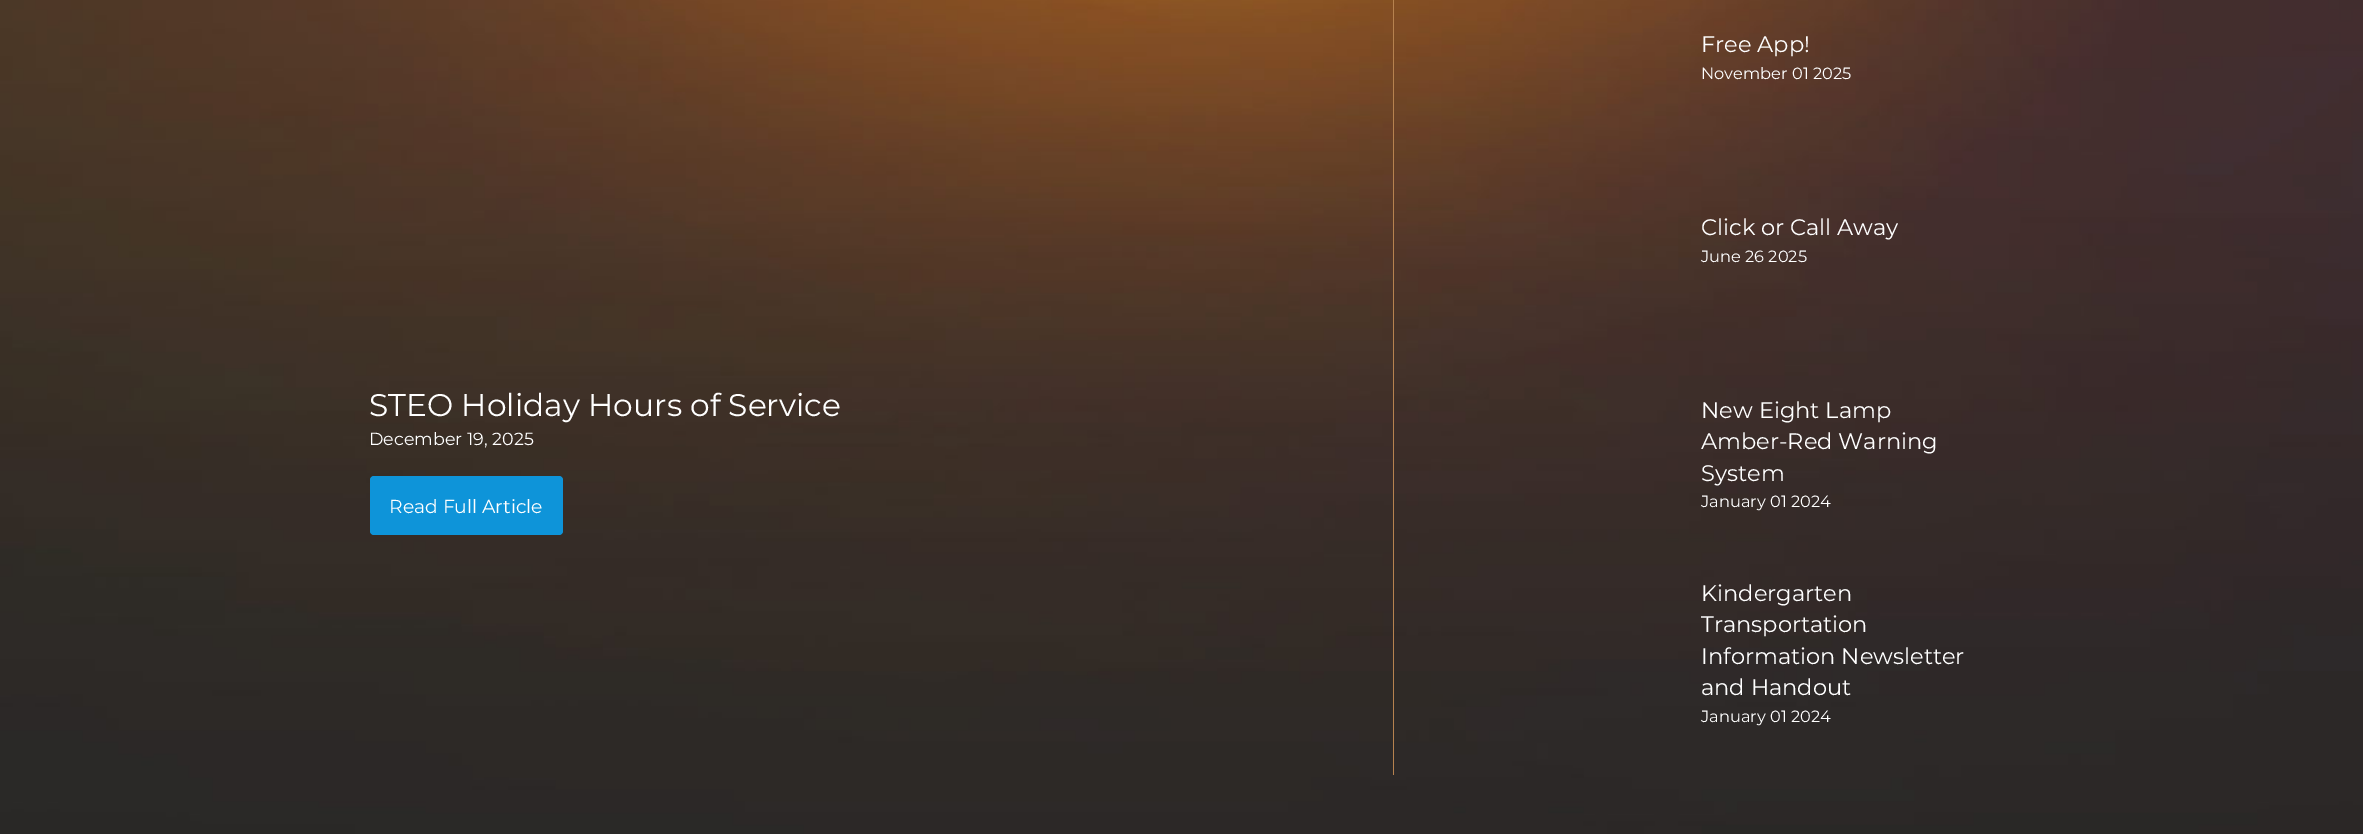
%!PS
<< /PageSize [2363 834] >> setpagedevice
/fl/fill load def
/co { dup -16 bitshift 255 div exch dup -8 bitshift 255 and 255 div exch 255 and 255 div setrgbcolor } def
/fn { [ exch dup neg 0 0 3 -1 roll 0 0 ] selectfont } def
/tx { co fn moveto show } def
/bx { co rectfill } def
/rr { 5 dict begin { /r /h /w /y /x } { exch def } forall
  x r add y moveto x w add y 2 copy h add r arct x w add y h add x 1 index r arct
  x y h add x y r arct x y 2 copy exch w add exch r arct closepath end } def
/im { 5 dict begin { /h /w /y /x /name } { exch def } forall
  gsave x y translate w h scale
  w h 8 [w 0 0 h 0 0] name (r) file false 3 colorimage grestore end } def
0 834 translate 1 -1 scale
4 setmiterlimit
0 0 2363 834 16#FFFFFF bx
(media/1.raw) 0 0 2363 834 im
16#0E94D9 co
370 476 193 59 4 rr fl
1393 0 1 775 16#B6824F bx
(STEO Holiday Hours of Service) 369 416 /Montserrat-Regular 31.25 16#FFFFFF tx
(December 19, 2025) 369 445 /Montserrat-Regular 17.5 16#FFFFFF tx
(Read Full Article) 389 513 /Montserrat-Regular 18.75 16#FFFFFF tx
(Free App!) 1701 52 /Montserrat-Regular 22.5 16#FFFFFF tx
(November 01 2025) 1701 79 /Montserrat-Regular 16.25 16#FFFFFF tx
(Click or Call Away) 1701 235 /Montserrat-Regular 22.5 16#FFFFFF tx
(June 26 2025) 1701 262 /Montserrat-Regular 16.25 16#FFFFFF tx
(New Eight Lamp) 1701 418 /Montserrat-Regular 22.5 16#FFFFFF tx
(Amber-Red Warning) 1701 449 /Montserrat-Regular 22.5 16#FFFFFF tx
(System) 1701 481 /Montserrat-Regular 22.5 16#FFFFFF tx
(January 01 2024) 1701 507 /Montserrat-Regular 16.25 16#FFFFFF tx
(Kindergarten) 1701 601 /Montserrat-Regular 22.5 16#FFFFFF tx
(Transportation) 1701 632 /Montserrat-Regular 22.5 16#FFFFFF tx
(Information Newsletter) 1701 664 /Montserrat-Regular 22.5 16#FFFFFF tx
(and Handout) 1701 695 /Montserrat-Regular 22.5 16#FFFFFF tx
(January 01 2024) 1701 722 /Montserrat-Regular 16.25 16#FFFFFF tx
showpage
